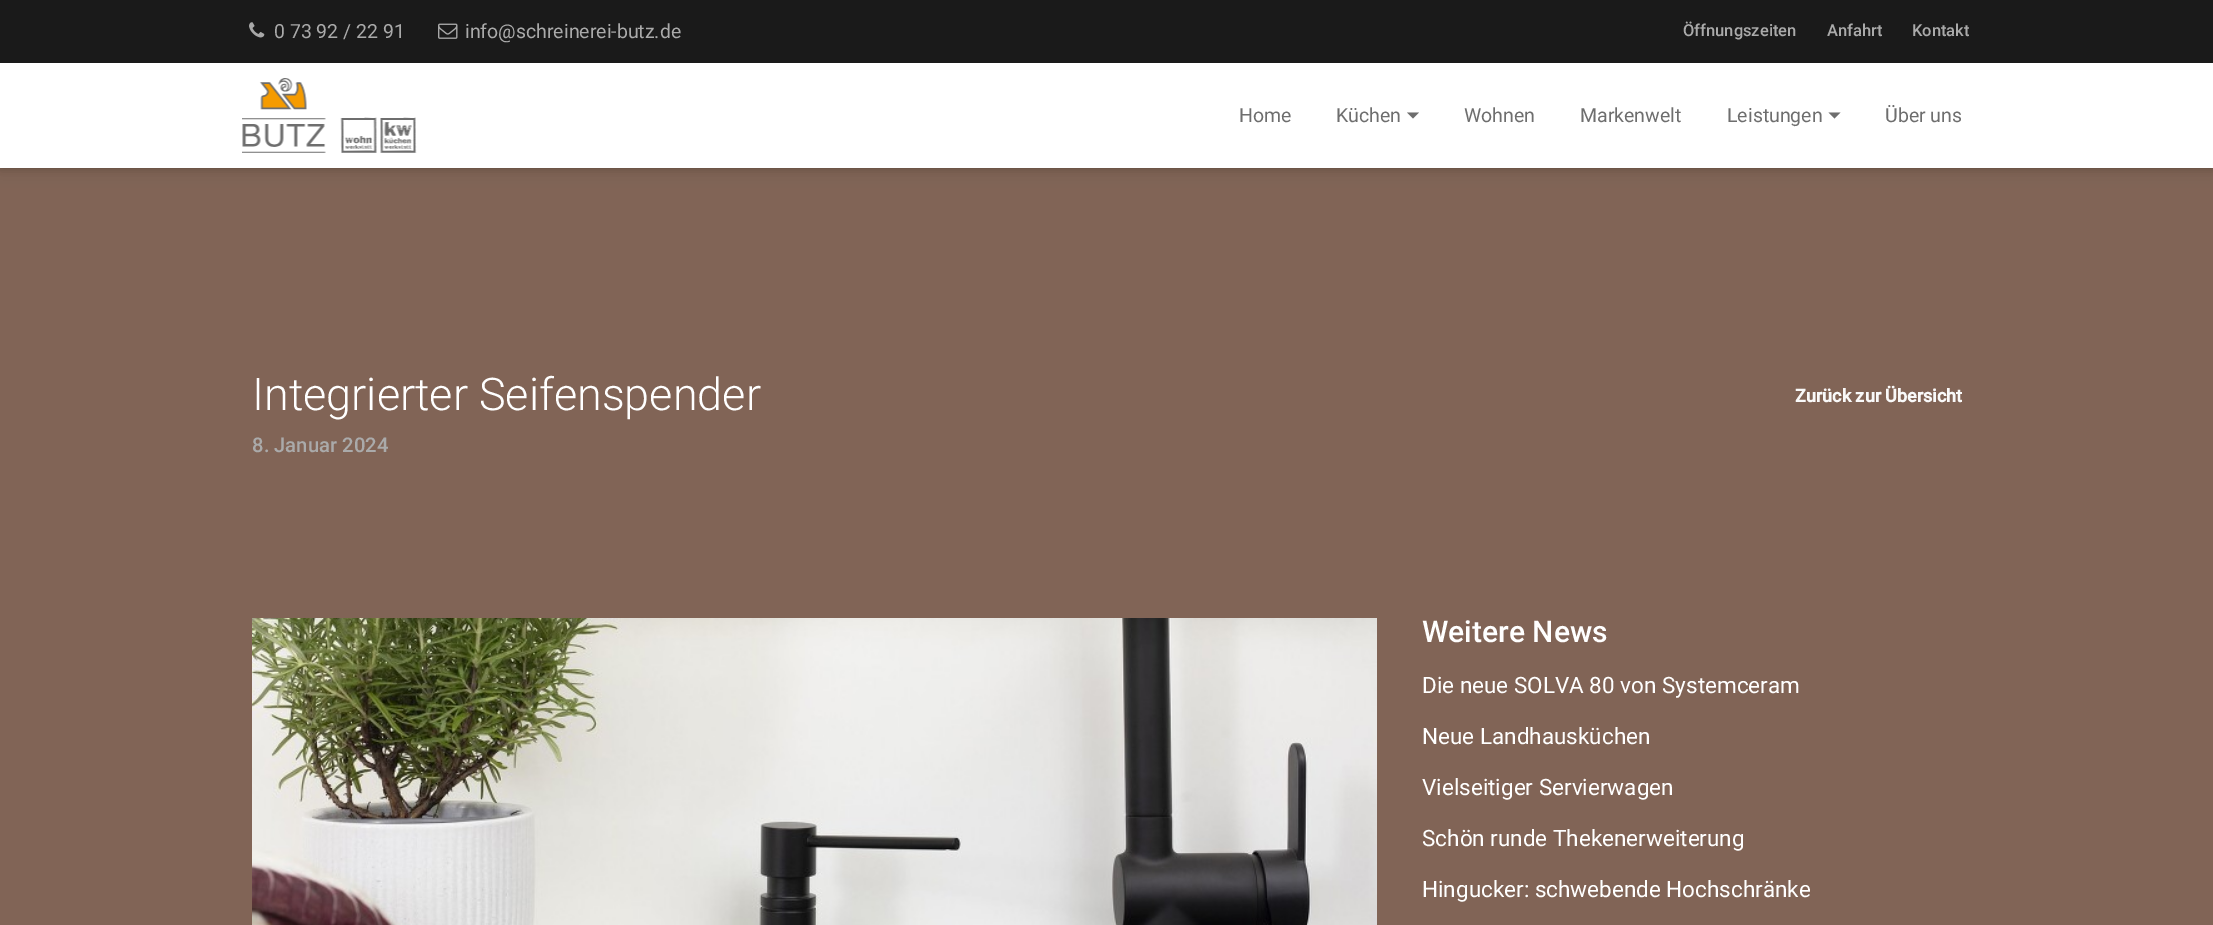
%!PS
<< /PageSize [2213 925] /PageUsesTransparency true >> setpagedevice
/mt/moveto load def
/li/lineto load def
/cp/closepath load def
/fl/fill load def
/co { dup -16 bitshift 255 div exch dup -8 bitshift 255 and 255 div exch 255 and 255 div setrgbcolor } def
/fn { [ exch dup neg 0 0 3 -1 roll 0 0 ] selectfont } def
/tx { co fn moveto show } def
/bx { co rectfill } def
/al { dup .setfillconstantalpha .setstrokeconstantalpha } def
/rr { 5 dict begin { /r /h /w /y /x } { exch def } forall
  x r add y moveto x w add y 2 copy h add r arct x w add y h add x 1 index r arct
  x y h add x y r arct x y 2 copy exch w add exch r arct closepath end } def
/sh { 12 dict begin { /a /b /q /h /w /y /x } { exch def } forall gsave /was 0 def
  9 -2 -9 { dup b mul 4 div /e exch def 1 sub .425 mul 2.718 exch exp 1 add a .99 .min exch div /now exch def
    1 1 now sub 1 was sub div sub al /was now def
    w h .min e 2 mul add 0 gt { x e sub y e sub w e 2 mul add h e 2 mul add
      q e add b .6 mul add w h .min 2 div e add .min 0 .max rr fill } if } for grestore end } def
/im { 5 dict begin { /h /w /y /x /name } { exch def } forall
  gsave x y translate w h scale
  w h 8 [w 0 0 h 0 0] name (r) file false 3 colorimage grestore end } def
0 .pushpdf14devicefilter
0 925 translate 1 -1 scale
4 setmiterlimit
0 0 2213 925 16#816456 bx
16#000000 co
0 3 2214 168 0 7.5 .12 sh
0 0 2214 168 0 4 .16 sh
0 63 2213 105 16#FFFFFF bx
0 0 2213 63 16#1A1A1A bx
(media/1.raw) 249 22 16 16 im
(media/2.raw) 438 23 20 16 im
(media/3.raw) 242 78 175 75 im
16#6E6E6E co
1407 112.5 mt 1419 112.5 li 1413 118.5 li cp fl
1828.5 112.5 mt 1840.5 112.5 li 1834.5 118.5 li cp fl
(media/4.raw) 252 618 1125 307 im
(0 73 92 / 22 91) 274 38 /Roboto-Regular 19.5 16#AAAAAA tx
(info@schreinerei-butz.de) 465 38 /Roboto-Regular 19.5 16#AAAAAA tx
(Öffnungszeiten) 1683 36 /Roboto-Medium 16.5 16#AAAAAA tx
(Anfahrt) 1827 36 /Roboto-Medium 16.5 16#AAAAAA tx
(Kontakt) 1912 36 /Roboto-Medium 16.5 16#AAAAAA tx
(Home) 1239 122 /Roboto-Regular 19.5 16#6E6E6E tx
(Küchen) 1336 122 /Roboto-Regular 19.5 16#6E6E6E tx
(Wohnen) 1464 122 /Roboto-Regular 19.5 16#6E6E6E tx
(Markenwelt) 1580 122 /Roboto-Regular 19.5 16#6E6E6E tx
(Leistungen) 1727 122 /Roboto-Regular 19.5 16#6E6E6E tx
(Über uns) 1885 122 /Roboto-Regular 19.5 16#6E6E6E tx
(Integrierter Seifenspender) 252 410 /Roboto-Light 45 16#FFFFFF tx
(Zurück zur Übersicht) 1795 402 /Roboto-Bold 18 16#F9F9F9 tx
(8. Januar 2024) 252 452 /Roboto-Medium 20.25 16#AAAAAA tx
(Weitere News) 1422 642 /Roboto-Medium 30 16#FFFFFF tx
(Die neue SOLVA 80 von Systemceram) 1422 693 /Roboto-Regular 22.5 16#FFFFFF tx
(Neue Landhausküchen) 1422 744 /Roboto-Regular 22.5 16#FFFFFF tx
(Vielseitiger Servierwagen) 1422 795 /Roboto-Regular 22.5 16#FFFFFF tx
(Schön runde Thekenerweiterung) 1422 846 /Roboto-Regular 22.5 16#FFFFFF tx
(Hingucker: schwebende Hochschränke) 1422 897 /Roboto-Regular 22.5 16#FFFFFF tx
.poppdf14devicefilter showpage
